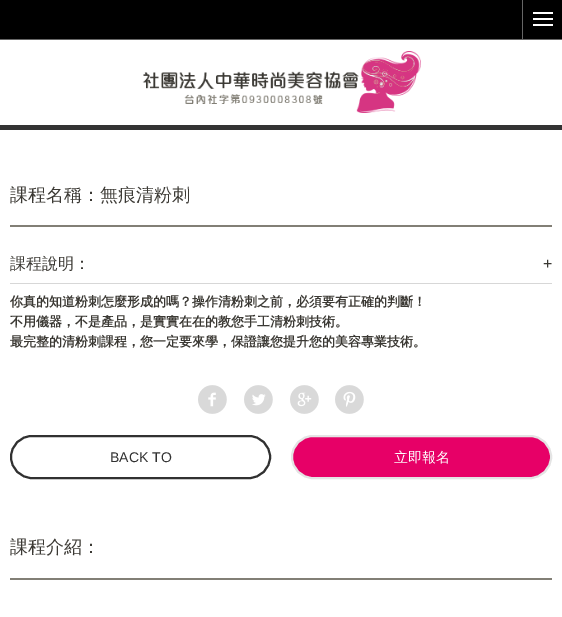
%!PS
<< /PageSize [562 617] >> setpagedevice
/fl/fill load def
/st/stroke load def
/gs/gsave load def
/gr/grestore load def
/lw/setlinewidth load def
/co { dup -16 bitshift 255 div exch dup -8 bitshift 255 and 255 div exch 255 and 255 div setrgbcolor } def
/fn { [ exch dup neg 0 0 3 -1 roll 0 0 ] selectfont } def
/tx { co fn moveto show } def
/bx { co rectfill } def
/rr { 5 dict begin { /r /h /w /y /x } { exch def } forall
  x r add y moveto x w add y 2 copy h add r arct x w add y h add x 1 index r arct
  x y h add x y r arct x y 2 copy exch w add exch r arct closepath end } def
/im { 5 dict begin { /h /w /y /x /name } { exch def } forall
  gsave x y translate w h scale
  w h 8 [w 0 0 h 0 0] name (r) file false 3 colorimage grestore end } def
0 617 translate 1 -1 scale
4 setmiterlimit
0 0 562 617 16#FFFFFF bx
0 125 562 5 16#333333 bx
0 0 562 39 16#000000 bx
0 39 562 1 16#666666 bx
522 0 1 40 16#666666 bx
533 12 20 2 16#FFFFFF bx
533 18 20 2 16#FFFFFF bx
533 24 20 2 16#FFFFFF bx
(media/1.raw) 142 51 279 62 im
10 225 542 2 16#827F76 bx
10 283 542 1 16#D7D7D7 bx
(media/2.raw) 198 385 29 29 im
(media/3.raw) 244 385 29 29 im
(media/4.raw) 290 385 29 29 im
(media/5.raw) 335 385 29 29 im
16#313131 co
2 lw
11 436 259 42 21 rr st
16#E70067 co
292 436 259 42 21 rr gs fl gr
16#E4E4E4 co
st
10 578 542 2 16#827F76 bx
(課程名稱：無痕清粉刺) 10 201 /WenQuanYiZenHei-Medium 18 16#3B3934 tx
(課程說明：) 10 269 /WenQuanYiZenHei-Medium 16 16#3B3934 tx
(+) 543 269 /LiberationSans-Regular 16 16#3B3934 tx
(你真的知道粉刺怎麼形成的嗎？操作清粉刺之前，必須要有正確的判斷！) 10 306 /WenQuanYiZenHei-Bold 13 16#3B3934 tx
(不用儀器，不是產品，是實實在在的教您手工清粉刺技術。) 10 326 /WenQuanYiZenHei-Bold 13 16#3B3934 tx
(最完整的清粉刺課程，您一定要來學，保證讓您提升您的美容專業技術。) 10 346 /WenQuanYiZenHei-Bold 13 16#3B3934 tx
(BACK TO) 110 462 /LiberationSans-Regular 14 16#313131 tx
(立即報名) 394 462 /WenQuanYiZenHei-Medium 14 16#FFFFFF tx
(課程介紹：) 10 553 /WenQuanYiZenHei-Medium 18 16#3B3934 tx
showpage
